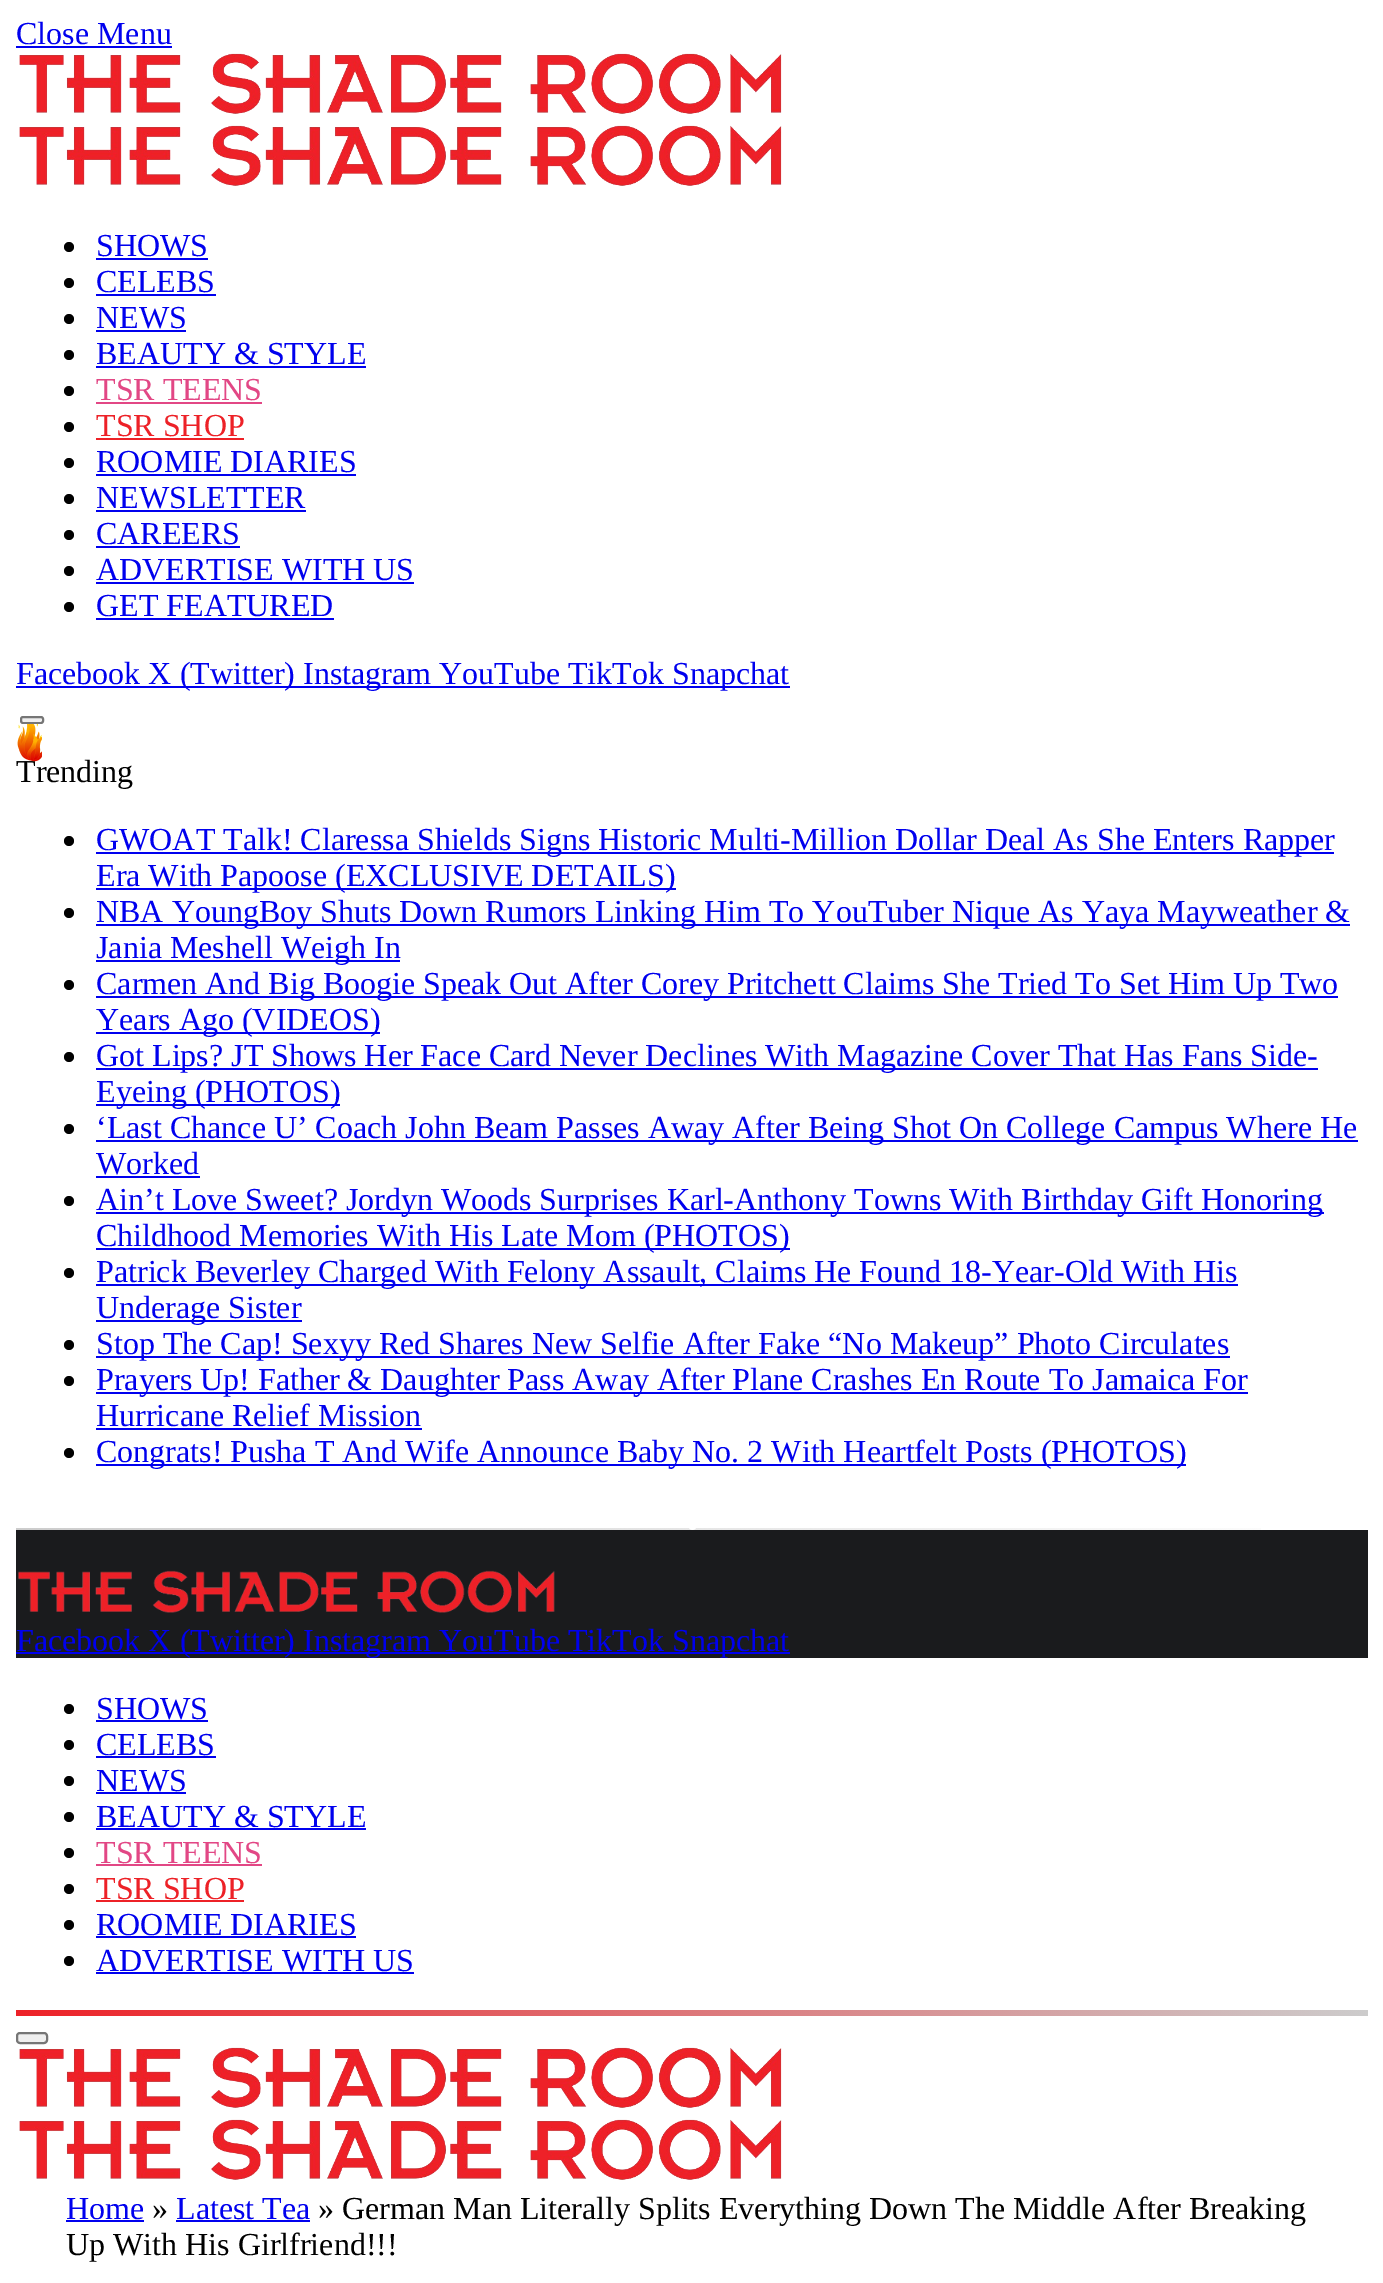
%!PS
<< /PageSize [1383 2283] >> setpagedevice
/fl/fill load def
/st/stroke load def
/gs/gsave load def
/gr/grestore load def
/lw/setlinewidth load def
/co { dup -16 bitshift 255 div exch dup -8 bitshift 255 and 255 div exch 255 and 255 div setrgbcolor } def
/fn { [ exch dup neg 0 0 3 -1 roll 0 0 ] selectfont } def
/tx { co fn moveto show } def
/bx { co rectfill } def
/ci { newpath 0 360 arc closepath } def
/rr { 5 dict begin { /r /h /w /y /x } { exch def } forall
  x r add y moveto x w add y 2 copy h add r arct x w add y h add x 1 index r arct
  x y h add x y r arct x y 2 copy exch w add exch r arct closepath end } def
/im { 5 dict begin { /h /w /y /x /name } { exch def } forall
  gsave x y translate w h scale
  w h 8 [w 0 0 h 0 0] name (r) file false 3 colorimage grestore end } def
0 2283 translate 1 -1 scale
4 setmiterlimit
0 0 1383 2283 16#FFFFFF bx
16 46 156 2 16#0000EE bx
(media/1.raw) 19 53 763 61 im
(media/1.raw) 19 125 763 61 im
16#000000 co
69 247 5 ci fl
96 258 112 2 16#0000EE bx
16#000000 co
69 283 5 ci fl
96 294 120 2 16#0000EE bx
16#000000 co
69 319 5 ci fl
96 330 90 2 16#0000EE bx
16#000000 co
69 355 5 ci fl
96 366 270 2 16#0000EE bx
16#000000 co
69 391 5 ci fl
96 402 166 2 16#E24785 bx
16#000000 co
69 427 5 ci fl
96 438 148 2 16#ED2127 bx
16#000000 co
69 463 5 ci fl
96 474 260 2 16#0000EE bx
16#000000 co
69 499 5 ci fl
96 510 210 2 16#0000EE bx
16#000000 co
69 535 5 ci fl
96 546 144 2 16#0000EE bx
16#000000 co
69 571 5 ci fl
96 582 318 2 16#0000EE bx
16#000000 co
69 607 5 ci fl
96 618 238 2 16#0000EE bx
16 686 774 2 16#0000EE bx
(media/2.raw) 16 1528 1245 2 im
16#EFEFEF co
21 717 22 6 2 rr gs fl gr
16#767676 co
2 lw
st
16#000000 co
69 841 5 ci fl
96 852 1238 2 16#0000EE bx
96 888 580 2 16#0000EE bx
16#000000 co
69 913 5 ci fl
96 924 1254 2 16#0000EE bx
96 960 304 2 16#0000EE bx
16#000000 co
69 985 5 ci fl
96 996 1242 2 16#0000EE bx
96 1032 284 2 16#0000EE bx
16#000000 co
69 1057 5 ci fl
96 1068 1222 2 16#0000EE bx
96 1104 244 2 16#0000EE bx
16#000000 co
69 1129 5 ci fl
96 1140 1262 2 16#0000EE bx
96 1176 104 2 16#0000EE bx
16#000000 co
69 1201 5 ci fl
96 1212 1228 2 16#0000EE bx
96 1248 694 2 16#0000EE bx
16#000000 co
69 1273 5 ci fl
96 1284 1142 2 16#0000EE bx
96 1320 206 2 16#0000EE bx
16#000000 co
69 1345 5 ci fl
96 1356 1134 2 16#0000EE bx
16#000000 co
69 1381 5 ci fl
96 1392 1152 2 16#0000EE bx
96 1428 326 2 16#0000EE bx
16#000000 co
69 1453 5 ci fl
96 1464 1090 2 16#0000EE bx
(media/4.raw) 689 1528 7 2 im
16 1530 1352 128 16#1A1B1D bx
(media/5.raw) 18 1570 537 43 im
16 1652 774 2 16#0000EE bx
16#000000 co
69 1709 5 ci fl
96 1720 112 2 16#0000EE bx
16#000000 co
69 1745 5 ci fl
96 1756 120 2 16#0000EE bx
16#000000 co
69 1781 5 ci fl
96 1792 90 2 16#0000EE bx
16#000000 co
69 1817 5 ci fl
96 1828 270 2 16#0000EE bx
16#000000 co
69 1853 5 ci fl
96 1864 166 2 16#E24785 bx
16#000000 co
69 1889 5 ci fl
96 1900 148 2 16#ED2127 bx
16#000000 co
69 1925 5 ci fl
96 1936 260 2 16#0000EE bx
16#000000 co
69 1961 5 ci fl
96 1972 318 2 16#0000EE bx
(media/6.raw) 16 2010 1352 6 im
16#EFEFEF co
17 2033 30 10 3 rr gs fl gr
16#767676 co
st
(media/1.raw) 19 2047 763 61 im
(media/1.raw) 19 2119 763 61 im
66 2220 78 2 16#0000EE bx
176 2220 134 2 16#0000EE bx
(Close Menu) 16 44 /LiberationSerif-Regular 32 16#0000EE tx
(SHOWS) 96 256 /LiberationSerif-Regular 32 16#0000EE tx
(CELEBS) 96 292 /LiberationSerif-Regular 32 16#0000EE tx
(NEWS) 96 328 /LiberationSerif-Regular 32 16#0000EE tx
(BEAUTY & STYLE) 96 364 /LiberationSerif-Regular 32 16#0000EE tx
(TSR TEENS) 96 400 /LiberationSerif-Regular 32 16#E24785 tx
(TSR SHOP) 96 436 /LiberationSerif-Regular 32 16#ED2127 tx
(ROOMIE DIARIES) 96 472 /LiberationSerif-Regular 32 16#0000EE tx
(NEWSLETTER) 96 508 /LiberationSerif-Regular 32 16#0000EE tx
(CAREERS) 96 544 /LiberationSerif-Regular 32 16#0000EE tx
(ADVERTISE WITH US) 96 580 /LiberationSerif-Regular 32 16#0000EE tx
(GET FEATURED) 96 616 /LiberationSerif-Regular 32 16#0000EE tx
(Facebook X \(Twitter\) Instagram YouTube TikTok Snapchat) 16 684 /LiberationSerif-Regular 32 16#0000EE tx
(Trending) 16 782 /LiberationSerif-Regular 32 16#000000 tx
(media/3.raw) 17 724 25 38 im
(GWOAT Talk! Claressa Shields Signs Historic Multi-Million Dollar Deal As She Enters Rapper) 96 850 /LiberationSerif-Regular 32 16#0000EE tx
(Era With Papoose \(EXCLUSIVE DETAILS\)) 96 886 /LiberationSerif-Regular 32 16#0000EE tx
(NBA YoungBoy Shuts Down Rumors Linking Him To YouTuber Nique As Yaya Mayweather &) 96 922 /LiberationSerif-Regular 32 16#0000EE tx
(Jania Meshell Weigh In) 96 958 /LiberationSerif-Regular 32 16#0000EE tx
(Carmen And Big Boogie Speak Out After Corey Pritchett Claims She Tried To Set Him Up Two) 96 994 /LiberationSerif-Regular 32 16#0000EE tx
(Years Ago \(VIDEOS\)) 96 1030 /LiberationSerif-Regular 32 16#0000EE tx
(Got Lips? JT Shows Her Face Card Never Declines With Magazine Cover That Has Fans Side-) 96 1066 /LiberationSerif-Regular 32 16#0000EE tx
(Eyeing \(PHOTOS\)) 96 1102 /LiberationSerif-Regular 32 16#0000EE tx
(‘Last Chance U’ Coach John Beam Passes Away After Being Shot On College Campus Where He) 96 1138 /LiberationSerif-Regular 32 16#0000EE tx
(Worked) 96 1174 /LiberationSerif-Regular 32 16#0000EE tx
(Ain’t Love Sweet? Jordyn Woods Surprises Karl-Anthony Towns With Birthday Gift Honoring) 96 1210 /LiberationSerif-Regular 32 16#0000EE tx
(Childhood Memories With His Late Mom \(PHOTOS\)) 96 1246 /LiberationSerif-Regular 32 16#0000EE tx
(Patrick Beverley Charged With Felony Assault, Claims He Found 18-Year-Old With His) 96 1282 /LiberationSerif-Regular 32 16#0000EE tx
(Underage Sister) 96 1318 /LiberationSerif-Regular 32 16#0000EE tx
(Stop The Cap! Sexyy Red Shares New Selfie After Fake “No Makeup” Photo Circulates) 96 1354 /LiberationSerif-Regular 32 16#0000EE tx
(Prayers Up! Father & Daughter Pass Away After Plane Crashes En Route To Jamaica For) 96 1390 /LiberationSerif-Regular 32 16#0000EE tx
(Hurricane Relief Mission) 96 1426 /LiberationSerif-Regular 32 16#0000EE tx
(Congrats! Pusha T And Wife Announce Baby No. 2 With Heartfelt Posts \(PHOTOS\)) 96 1462 /LiberationSerif-Regular 32 16#0000EE tx
(Facebook X \(Twitter\) Instagram YouTube TikTok Snapchat) 16 1651 /LiberationSerif-Regular 32 16#0000EE tx
(SHOWS) 96 1719 /LiberationSerif-Regular 32 16#0000EE tx
(CELEBS) 96 1755 /LiberationSerif-Regular 32 16#0000EE tx
(NEWS) 96 1791 /LiberationSerif-Regular 32 16#0000EE tx
(BEAUTY & STYLE) 96 1827 /LiberationSerif-Regular 32 16#0000EE tx
(TSR TEENS) 96 1863 /LiberationSerif-Regular 32 16#E24785 tx
(TSR SHOP) 96 1899 /LiberationSerif-Regular 32 16#ED2127 tx
(ROOMIE DIARIES) 96 1935 /LiberationSerif-Regular 32 16#0000EE tx
(ADVERTISE WITH US) 96 1971 /LiberationSerif-Regular 32 16#0000EE tx
(Home) 66 2219 /LiberationSerif-Regular 32 16#0000EE tx
(») 152 2219 /LiberationSerif-Regular 32 16#000000 tx
(Latest Tea) 176 2219 /LiberationSerif-Regular 32 16#0000EE tx
(» German Man Literally Splits Everything Down The Middle After Breaking) 318 2219 /LiberationSerif-Regular 32 16#000000 tx
(Up With His Girlfriend!!!) 66 2255 /LiberationSerif-Regular 32 16#000000 tx
showpage
